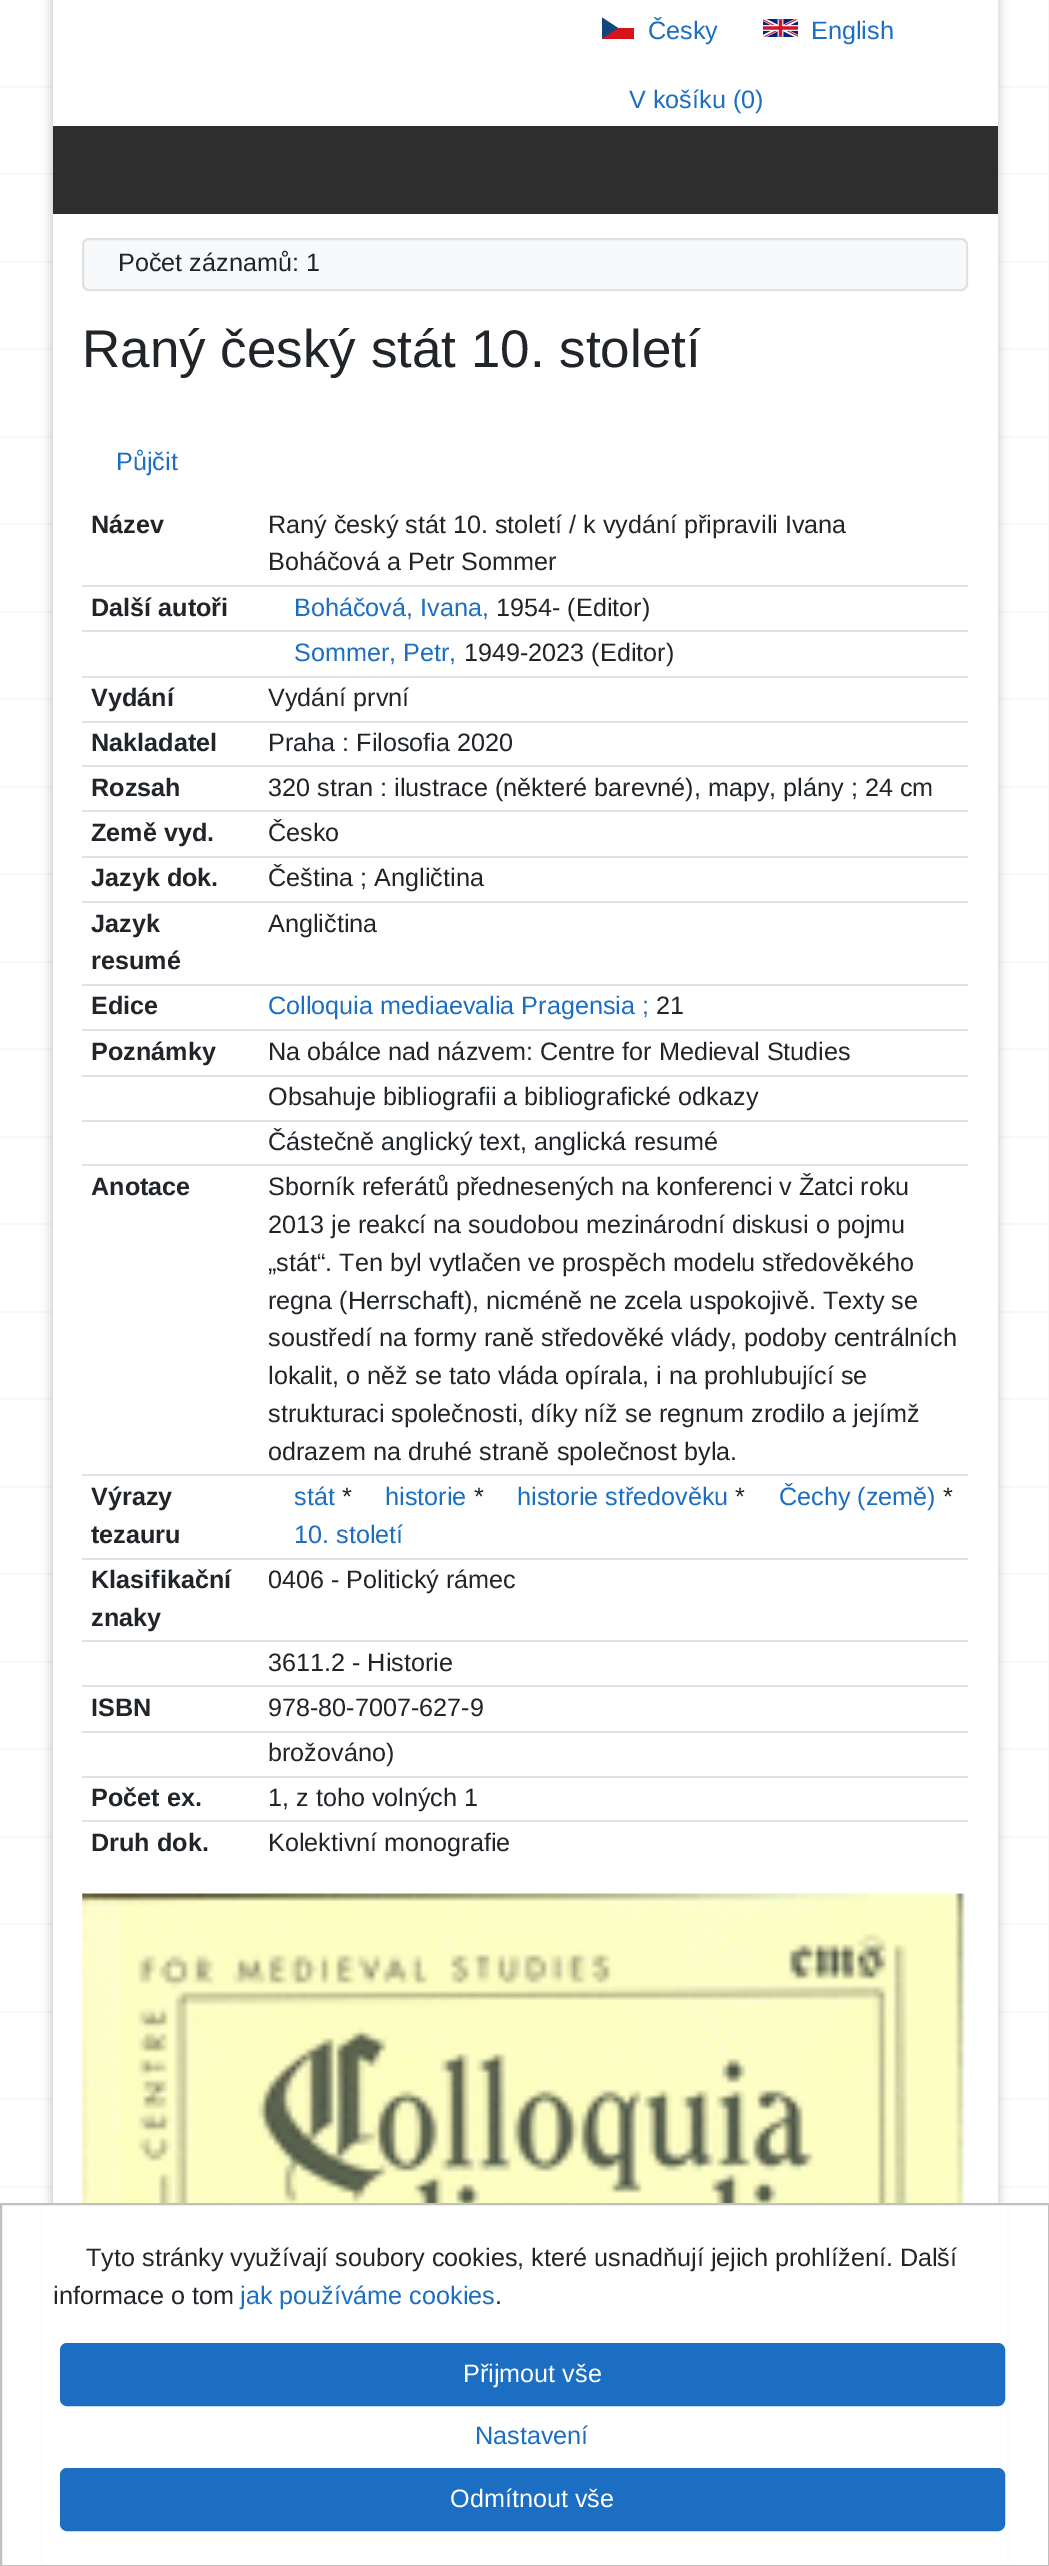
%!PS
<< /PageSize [1049 2566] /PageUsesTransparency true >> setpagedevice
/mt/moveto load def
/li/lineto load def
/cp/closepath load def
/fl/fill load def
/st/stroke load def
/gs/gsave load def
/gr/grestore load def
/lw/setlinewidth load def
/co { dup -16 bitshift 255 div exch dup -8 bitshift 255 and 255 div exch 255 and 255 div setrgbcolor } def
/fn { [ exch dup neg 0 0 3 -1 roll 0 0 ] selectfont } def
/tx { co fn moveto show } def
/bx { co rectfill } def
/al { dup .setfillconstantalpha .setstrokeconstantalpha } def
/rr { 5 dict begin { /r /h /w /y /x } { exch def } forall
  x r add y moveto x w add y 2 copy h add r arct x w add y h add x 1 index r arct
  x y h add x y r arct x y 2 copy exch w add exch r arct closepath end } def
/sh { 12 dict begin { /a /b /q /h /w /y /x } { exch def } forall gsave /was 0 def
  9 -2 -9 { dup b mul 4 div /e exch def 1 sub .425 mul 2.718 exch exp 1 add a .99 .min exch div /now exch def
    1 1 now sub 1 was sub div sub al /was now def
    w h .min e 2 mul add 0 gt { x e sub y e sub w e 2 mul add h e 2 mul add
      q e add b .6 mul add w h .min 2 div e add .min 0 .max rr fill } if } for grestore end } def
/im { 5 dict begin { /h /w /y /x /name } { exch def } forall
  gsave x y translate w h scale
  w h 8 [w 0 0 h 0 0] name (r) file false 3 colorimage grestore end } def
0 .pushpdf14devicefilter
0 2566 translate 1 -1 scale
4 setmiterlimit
0 0 1049 2566 16#FFFFFF bx
1048 0 1 2203 16#F8F9FA bx
(media/1.raw) 0 86 1048 2102 im
16#000000 co
51 -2 948 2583 0 5 .2 sh
53 0 945 2203 16#FFFFFF bx
602 28 32 11 16#D7141A bx
16#11457E co
618 28 mt 602 17.5 li 602 38.5 li cp fl
(media/2.raw) 763 19 35 18 im
53 126 945 88 16#2E2E2E bx
16#F8F9FA co
82 238 886 53 7 rr fl
0.12 al
16#333333 co
2 lw
83 239 884 51 6 rr st
1 al
82 585 886 2 16#DEE2E6 bx
82 630 886 2 16#DEE2E6 bx
82 676 886 2 16#DEE2E6 bx
82 721 886 2 16#DEE2E6 bx
82 765 886 2 16#DEE2E6 bx
82 810 886 2 16#DEE2E6 bx
82 856 886 2 16#DEE2E6 bx
82 901 886 2 16#DEE2E6 bx
82 984 886 2 16#DEE2E6 bx
82 1029 886 2 16#DEE2E6 bx
82 1075 886 2 16#DEE2E6 bx
82 1120 886 2 16#DEE2E6 bx
82 1164 886 2 16#DEE2E6 bx
82 1474 886 2 16#DEE2E6 bx
82 1558 886 2 16#DEE2E6 bx
82 1640 886 2 16#DEE2E6 bx
82 1685 886 2 16#DEE2E6 bx
82 1731 886 2 16#DEE2E6 bx
82 1776 886 2 16#DEE2E6 bx
82 1820 886 2 16#DEE2E6 bx
(media/3.raw) 82 1893 883 310 im
43 2205 964 360 16#FFFFFF bx
16#C0C0C0 co
1 2204 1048 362 rectstroke
16#1B6EC2 co
61 2344 943 61 6 rr gs fl gr
st
61 2469 943 61 6 rr gs fl gr
st
(Česky) 648 39 /LiberationSans-Regular 25.2 16#1B6EC2 tx
(English) 811 39 /LiberationSans-Regular 25.2 16#1B6EC2 tx
(V košíku \(0\)) 629 108 /LiberationSans-Regular 25.2 16#1B6EC2 tx
(Počet záznamů: 1) 118 271 /LiberationSans-Regular 25.2 16#212529 tx
(Raný český stát 10. století) 82 367 /LiberationSans-Regular 53 16#212529 tx
(Půjčit) 116 470 /LiberationSans-Regular 25.2 16#1B6EC2 tx
(Název) 91 533 /LiberationSans-Bold 25.2 16#212529 tx
(Raný český stát 10. století / k vydání připravili Ivana) 268 533 /LiberationSans-Regular 25.2 16#212529 tx
(Boháčová a Petr Sommer) 268 570 /LiberationSans-Regular 25.2 16#212529 tx
(Další autoři) 91 616 /LiberationSans-Bold 25.2 16#212529 tx
(Boháčová, Ivana,) 294 616 /LiberationSans-Regular 25.2 16#1B6EC2 tx
(1954- \(Editor\)) 496 616 /LiberationSans-Regular 25.2 16#212529 tx
(Sommer, Petr,) 294 661 /LiberationSans-Regular 25.2 16#1B6EC2 tx
(1949-2023 \(Editor\)) 464 661 /LiberationSans-Regular 25.2 16#212529 tx
(Vydání) 91 706 /LiberationSans-Bold 25.2 16#212529 tx
(Vydání první) 268 706 /LiberationSans-Regular 25.2 16#212529 tx
(Nakladatel) 91 751 /LiberationSans-Bold 25.2 16#212529 tx
(Praha : Filosofia 2020) 268 751 /LiberationSans-Regular 25.2 16#212529 tx
(Rozsah) 91 796 /LiberationSans-Bold 25.2 16#212529 tx
(320 stran : ilustrace \(některé barevné\), mapy, plány ; 24 cm) 268 796 /LiberationSans-Regular 25.2 16#212529 tx
(Země vyd.) 91 841 /LiberationSans-Bold 25.2 16#212529 tx
(Česko) 268 841 /LiberationSans-Regular 25.2 16#212529 tx
(Jazyk dok.) 91 886 /LiberationSans-Bold 25.2 16#212529 tx
(Čeština ; Angličtina) 268 886 /LiberationSans-Regular 25.2 16#212529 tx
(Jazyk) 91 932 /LiberationSans-Bold 25.2 16#212529 tx
(resumé) 91 969 /LiberationSans-Bold 25.2 16#212529 tx
(Angličtina) 268 932 /LiberationSans-Regular 25.2 16#212529 tx
(Edice) 91 1014 /LiberationSans-Bold 25.2 16#212529 tx
(Colloquia mediaevalia Pragensia ;) 268 1014 /LiberationSans-Regular 25.2 16#1B6EC2 tx
(21) 656 1014 /LiberationSans-Regular 25.2 16#212529 tx
(Poznámky) 91 1060 /LiberationSans-Bold 25.2 16#212529 tx
(Na obálce nad názvem: Centre for Medieval Studies) 268 1060 /LiberationSans-Regular 25.2 16#212529 tx
(Obsahuje bibliografii a bibliografické odkazy) 268 1105 /LiberationSans-Regular 25.2 16#212529 tx
(Částečně anglický text, anglická resumé) 268 1150 /LiberationSans-Regular 25.2 16#212529 tx
(Anotace) 91 1195 /LiberationSans-Bold 25.2 16#212529 tx
(Sborník referátů přednesených na konferenci v Žatci roku) 268 1195 /LiberationSans-Regular 25.2 16#212529 tx
(2013 je reakcí na soudobou mezinárodní diskusi o pojmu) 268 1233 /LiberationSans-Regular 25.2 16#212529 tx
(„stát“. Ten byl vytlačen ve prospěch modelu středověkého) 268 1271 /LiberationSans-Regular 25.2 16#212529 tx
(regna \(Herrschaft\), nicméně ne zcela uspokojivě. Texty se) 268 1309 /LiberationSans-Regular 25.2 16#212529 tx
(soustředí na formy raně středověké vlády, podoby centrálních) 268 1346 /LiberationSans-Regular 25.2 16#212529 tx
(lokalit, o něž se tato vláda opírala, i na prohlubující se) 268 1384 /LiberationSans-Regular 25.2 16#212529 tx
(strukturaci společnosti, díky níž se regnum zrodilo a jejímž) 268 1422 /LiberationSans-Regular 25.2 16#212529 tx
(odrazem na druhé straně společnost byla.) 268 1460 /LiberationSans-Regular 25.2 16#212529 tx
(Výrazy) 91 1505 /LiberationSans-Bold 25.2 16#212529 tx
(tezauru) 91 1543 /LiberationSans-Bold 25.2 16#212529 tx
(stát) 294 1505 /LiberationSans-Regular 25.2 16#1B6EC2 tx
(*) 342 1505 /LiberationSans-Regular 25.2 16#212529 tx
(historie) 385 1505 /LiberationSans-Regular 25.2 16#1B6EC2 tx
(*) 474 1505 /LiberationSans-Regular 25.2 16#212529 tx
(historie středověku) 517 1505 /LiberationSans-Regular 25.2 16#1B6EC2 tx
(*) 735 1505 /LiberationSans-Regular 25.2 16#212529 tx
(Čechy \(země\)) 779 1505 /LiberationSans-Regular 25.2 16#1B6EC2 tx
(*) 943 1505 /LiberationSans-Regular 25.2 16#212529 tx
(10. století) 294 1543 /LiberationSans-Regular 25.2 16#1B6EC2 tx
(Klasifikační) 91 1588 /LiberationSans-Bold 25.2 16#212529 tx
(znaky) 91 1626 /LiberationSans-Bold 25.2 16#212529 tx
(0406 - Politický rámec) 268 1588 /LiberationSans-Regular 25.2 16#212529 tx
(3611.2 - Historie) 268 1671 /LiberationSans-Regular 25.2 16#212529 tx
(ISBN) 91 1716 /LiberationSans-Bold 25.2 16#212529 tx
(978-80-7007-627-9) 268 1716 /LiberationSans-Regular 25.2 16#212529 tx
(brožováno\)) 268 1761 /LiberationSans-Regular 25.2 16#212529 tx
(Počet ex.) 91 1806 /LiberationSans-Bold 25.2 16#212529 tx
(1, z toho volných 1) 268 1806 /LiberationSans-Regular 25.2 16#212529 tx
(Druh dok.) 91 1851 /LiberationSans-Bold 25.2 16#212529 tx
(Kolektivní monografie) 268 1851 /LiberationSans-Regular 25.2 16#212529 tx
(Tyto stránky využívají soubory cookies, které usnadňují jejich prohlížení. Další) 86 2266 /LiberationSans-Regular 25.2 16#212529 tx
(informace o tom) 53 2304 /LiberationSans-Regular 25.2 16#212529 tx
(jak používáme cookies) 240 2304 /LiberationSans-Regular 25.2 16#1B6EC2 tx
(.) 495 2304 /LiberationSans-Regular 25.2 16#212529 tx
(Přijmout vše) 463 2382 /LiberationSans-Regular 25.2 16#FFFFFF tx
(Nastavení) 475 2444 /LiberationSans-Regular 25.2 16#1B6EC2 tx
(Odmítnout vše) 450 2507 /LiberationSans-Regular 25.2 16#FFFFFF tx
.poppdf14devicefilter showpage
